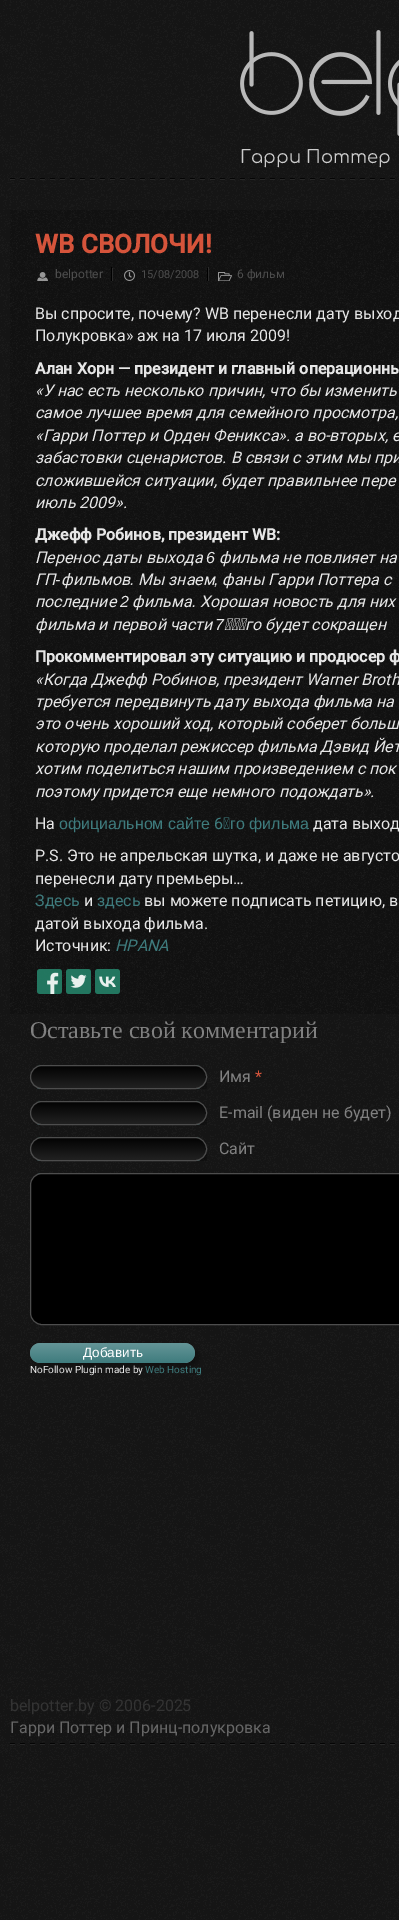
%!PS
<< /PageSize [399 1920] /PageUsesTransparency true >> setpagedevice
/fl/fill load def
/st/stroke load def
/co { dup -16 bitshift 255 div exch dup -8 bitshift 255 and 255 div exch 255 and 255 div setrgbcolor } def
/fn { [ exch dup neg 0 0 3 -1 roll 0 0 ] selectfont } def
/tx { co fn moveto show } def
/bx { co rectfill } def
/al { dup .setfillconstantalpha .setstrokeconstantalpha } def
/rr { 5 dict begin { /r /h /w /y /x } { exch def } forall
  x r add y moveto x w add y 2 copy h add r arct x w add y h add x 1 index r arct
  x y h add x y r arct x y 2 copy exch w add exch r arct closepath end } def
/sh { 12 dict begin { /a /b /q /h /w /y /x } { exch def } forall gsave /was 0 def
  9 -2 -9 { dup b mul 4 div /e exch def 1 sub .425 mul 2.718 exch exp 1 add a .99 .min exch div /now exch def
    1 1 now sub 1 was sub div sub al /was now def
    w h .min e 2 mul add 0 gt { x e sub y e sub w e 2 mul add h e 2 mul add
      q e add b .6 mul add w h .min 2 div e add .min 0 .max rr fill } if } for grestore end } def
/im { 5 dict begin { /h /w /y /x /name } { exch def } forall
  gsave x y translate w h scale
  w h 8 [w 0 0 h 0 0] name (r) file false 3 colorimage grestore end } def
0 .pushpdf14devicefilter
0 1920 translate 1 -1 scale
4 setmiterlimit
0 0 399 1920 16#FFFFFF bx
(media/1.raw) 0 0 399 1920 im
(media/2.raw) 10 178 385 2 im
(media/3.raw) 240 30 159 106 im
(media/4.raw) 10 210 389 804 im
(media/5.raw) 37 272 11 9 im
111 267 1 14 16#000000 bx
(media/6.raw) 124 270 11 11 im
207 268 1 13 16#000000 bx
112 268 1 13 16#2B2B2B bx
(media/7.raw) 218 272 14 9 im
208 267 1 14 16#2B2B2B bx
(media/8.raw) 37 969 25 25 im
(media/9.raw) 66 969 25 25 im
(media/10.raw) 95 969 25 25 im
(media/11.raw) 30 1065 177 24 im
16#4D4D4D co
30.5 1065.5 176 23 11.5 rr st
(media/12.raw) 30 1101 177 24 im
30.5 1101.5 176 23 11.5 rr st
(media/13.raw) 30 1137 177 24 im
30.5 1137.5 176 23 11.5 rr st
(media/14.raw) 30 1173 369 151 im
30.5 1173.5 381 151 11.5 rr st
16#000000 co
34 1347 165 20 10 2.5 .3 sh
16#669698 co
30 1343 165 20 10 rr fl
(media/15.raw) 30 1343 165 20 im
(media/16.raw) 10 1743 385 2 im
(Гарри Поттер) 240 163 /Comfortaa-Regular 18 16#CCCCCC tx
(WB СВОЛОЧИ!) 35 253 /Roboto-Bold 26 16#D6543B tx
(belpotter) 55 278 /Roboto-Regular 12 16#4D4D4D tx
(15/08/2008) 141 278 /Roboto-Regular 11 16#4D4D4D tx
(6 фильм) 237 278 /Roboto-Regular 12 16#4D4D4D tx
(Вы спросите, почему? WB перенесли дату выход) 35 319 /Roboto-Regular 16 16#E6E6E6 tx
(Полукровка» аж на 17 июля 2009!) 35 341 /Roboto-Regular 16 16#E6E6E6 tx
(Алан Хорн — президент и главный операционны) 35 374 /Roboto-Bold 16 16#E6E6E6 tx
(«У нас есть несколько причин, что бы изменить) 35 396 /Roboto-Italic 16 16#E6E6E6 tx
(самое лучшее время для семейного просмотра,) 35 418 /Roboto-Italic 16 16#E6E6E6 tx
(«Гарри Поттер и Орден Феникса». а во-вторых, е) 35 441 /Roboto-Italic 16 16#E6E6E6 tx
(забастовки сценаристов. В связи с этим мы при) 35 463 /Roboto-Italic 16 16#E6E6E6 tx
(сложившейся ситуации, будет правильнее пере) 35 486 /Roboto-Italic 16 16#E6E6E6 tx
(июль 2009».) 35 508 /Roboto-Italic 16 16#E6E6E6 tx
(Джефф Робинов, президент WB:) 35 540 /Roboto-Bold 16 16#E6E6E6 tx
(Перенос даты выхода) 35 563 /Roboto-Italic 16 16#E6E6E6 tx
(6) 206 563 /LiberationSans-Italic 16 16#E6E6E6 tx
(фильма не повлияет на) 219 563 /Roboto-Italic 16 16#E6E6E6 tx
(ГП) 35 585 /Roboto-Italic 16 16#E6E6E6 tx
(-) 55 585 /LiberationSans-Italic 16 16#E6E6E6 tx
(фильмов) 61 585 /Roboto-Italic 16 16#E6E6E6 tx
(Мы знаем) 138 585 /Roboto-Italic 16 16#E6E6E6 tx
(фаны Гарри Поттера с) 222 585 /Roboto-Italic 16 16#E6E6E6 tx
(.) 130 585 /LiberationSans-Italic 16 16#E6E6E6 tx
(,) 214 585 /LiberationSans-Italic 16 16#E6E6E6 tx
(последние) 35 607 /Roboto-Italic 16 16#E6E6E6 tx
(2) 120 607 /LiberationSans-Italic 16 16#E6E6E6 tx
(фильма) 132 607 /Roboto-Italic 16 16#E6E6E6 tx
(.) 192 607 /LiberationSans-Italic 16 16#E6E6E6 tx
(Хорошая новость для них) 200 607 /Roboto-Italic 16 16#E6E6E6 tx
(фильма и первой части) 35 630 /Roboto-Italic 16 16#E6E6E6 tx
(7) 215 630 /LiberationSans-Italic 16 16#E6E6E6 tx
(‑го будет сокращен) 224 630 /Roboto-Italic 16 16#E6E6E6 tx
(.) 371 630 /LiberationSans-Italic 16 16#E6E6E6 tx
(Прокомментировал эту ситуацию и продюсер ф) 35 662 /Roboto-Bold 16 16#E6E6E6 tx
(«Когда Джефф Робинов, президент Warner Broth) 35 685 /Roboto-Italic 16 16#E6E6E6 tx
(требуется передвинуть дату выхода фильма на) 35 707 /Roboto-Italic 16 16#E6E6E6 tx
(это очень хороший ход, который соберет больш) 35 729 /Roboto-Italic 16 16#E6E6E6 tx
(которую проделал режиссер фильма Дэвид Йет) 35 752 /Roboto-Italic 16 16#E6E6E6 tx
(хотим поделиться нашим произведением с пок) 35 774 /Roboto-Italic 16 16#E6E6E6 tx
(поэтому придется еще немного подождать».) 35 797 /Roboto-Italic 16 16#E6E6E6 tx
(На) 35 829 /Roboto-Regular 16 16#E6E6E6 tx
(официальном сайте) 59 829 /LiberationSans-Regular 16 16#3E7B7D tx
(6‑) 214 829 /Roboto-Regular 16 16#3E7B7D tx
(го фильма) 230 829 /LiberationSans-Regular 16 16#3E7B7D tx
(дата выход) 313 829 /Roboto-Regular 16 16#E6E6E6 tx
(P.S. Это не апрельская шутка, и даже не августо) 35 861 /Roboto-Regular 16 16#E6E6E6 tx
(перенесли дату премьеры…) 35 884 /Roboto-Regular 16 16#E6E6E6 tx
(Здесь) 35 906 /Roboto-Regular 16 16#3E7B7D tx
(и) 84 906 /Roboto-Regular 16 16#E6E6E6 tx
(здесь) 97 906 /Roboto-Regular 16 16#3E7B7D tx
(вы можете подписать петицию, в) 144 906 /Roboto-Regular 16 16#E6E6E6 tx
(датой выхода фильма.) 35 929 /Roboto-Regular 16 16#E6E6E6 tx
(Источник:) 35 951 /Roboto-Regular 16 16#E6E6E6 tx
(HPANA) 115 951 /Roboto-Italic 16 16#3E7B7D tx
(Оставьте свой комментарий) 30 1038 /LiberationSerif-Regular 24 16#808080 tx
(Имя) 219 1082 /Roboto-Regular 16 16#808080 tx
(*) 255 1082 /Roboto-Regular 16 16#D6543B tx
(E-mail \(виден не будет\)) 219 1118 /Roboto-Regular 16 16#808080 tx
(Сайт) 219 1154 /Roboto-Regular 16 16#808080 tx
(Добавить) 83 1357 /LiberationSans-Regular 13.5 16#FFFFFF tx
(NoFollow Plugin made by) 30 1373 /Roboto-Regular 10 16#E6E6E6 tx
(Web Hosting) 145 1373 /Roboto-Regular 10 16#3E7B7D tx
(belpotter.by © 2006-2025) 10 1711 /Roboto-Regular 16 16#333333 tx
(Гарри Поттер и Принц-полукровка) 10 1733 /Roboto-Regular 16 16#666666 tx
.poppdf14devicefilter showpage
